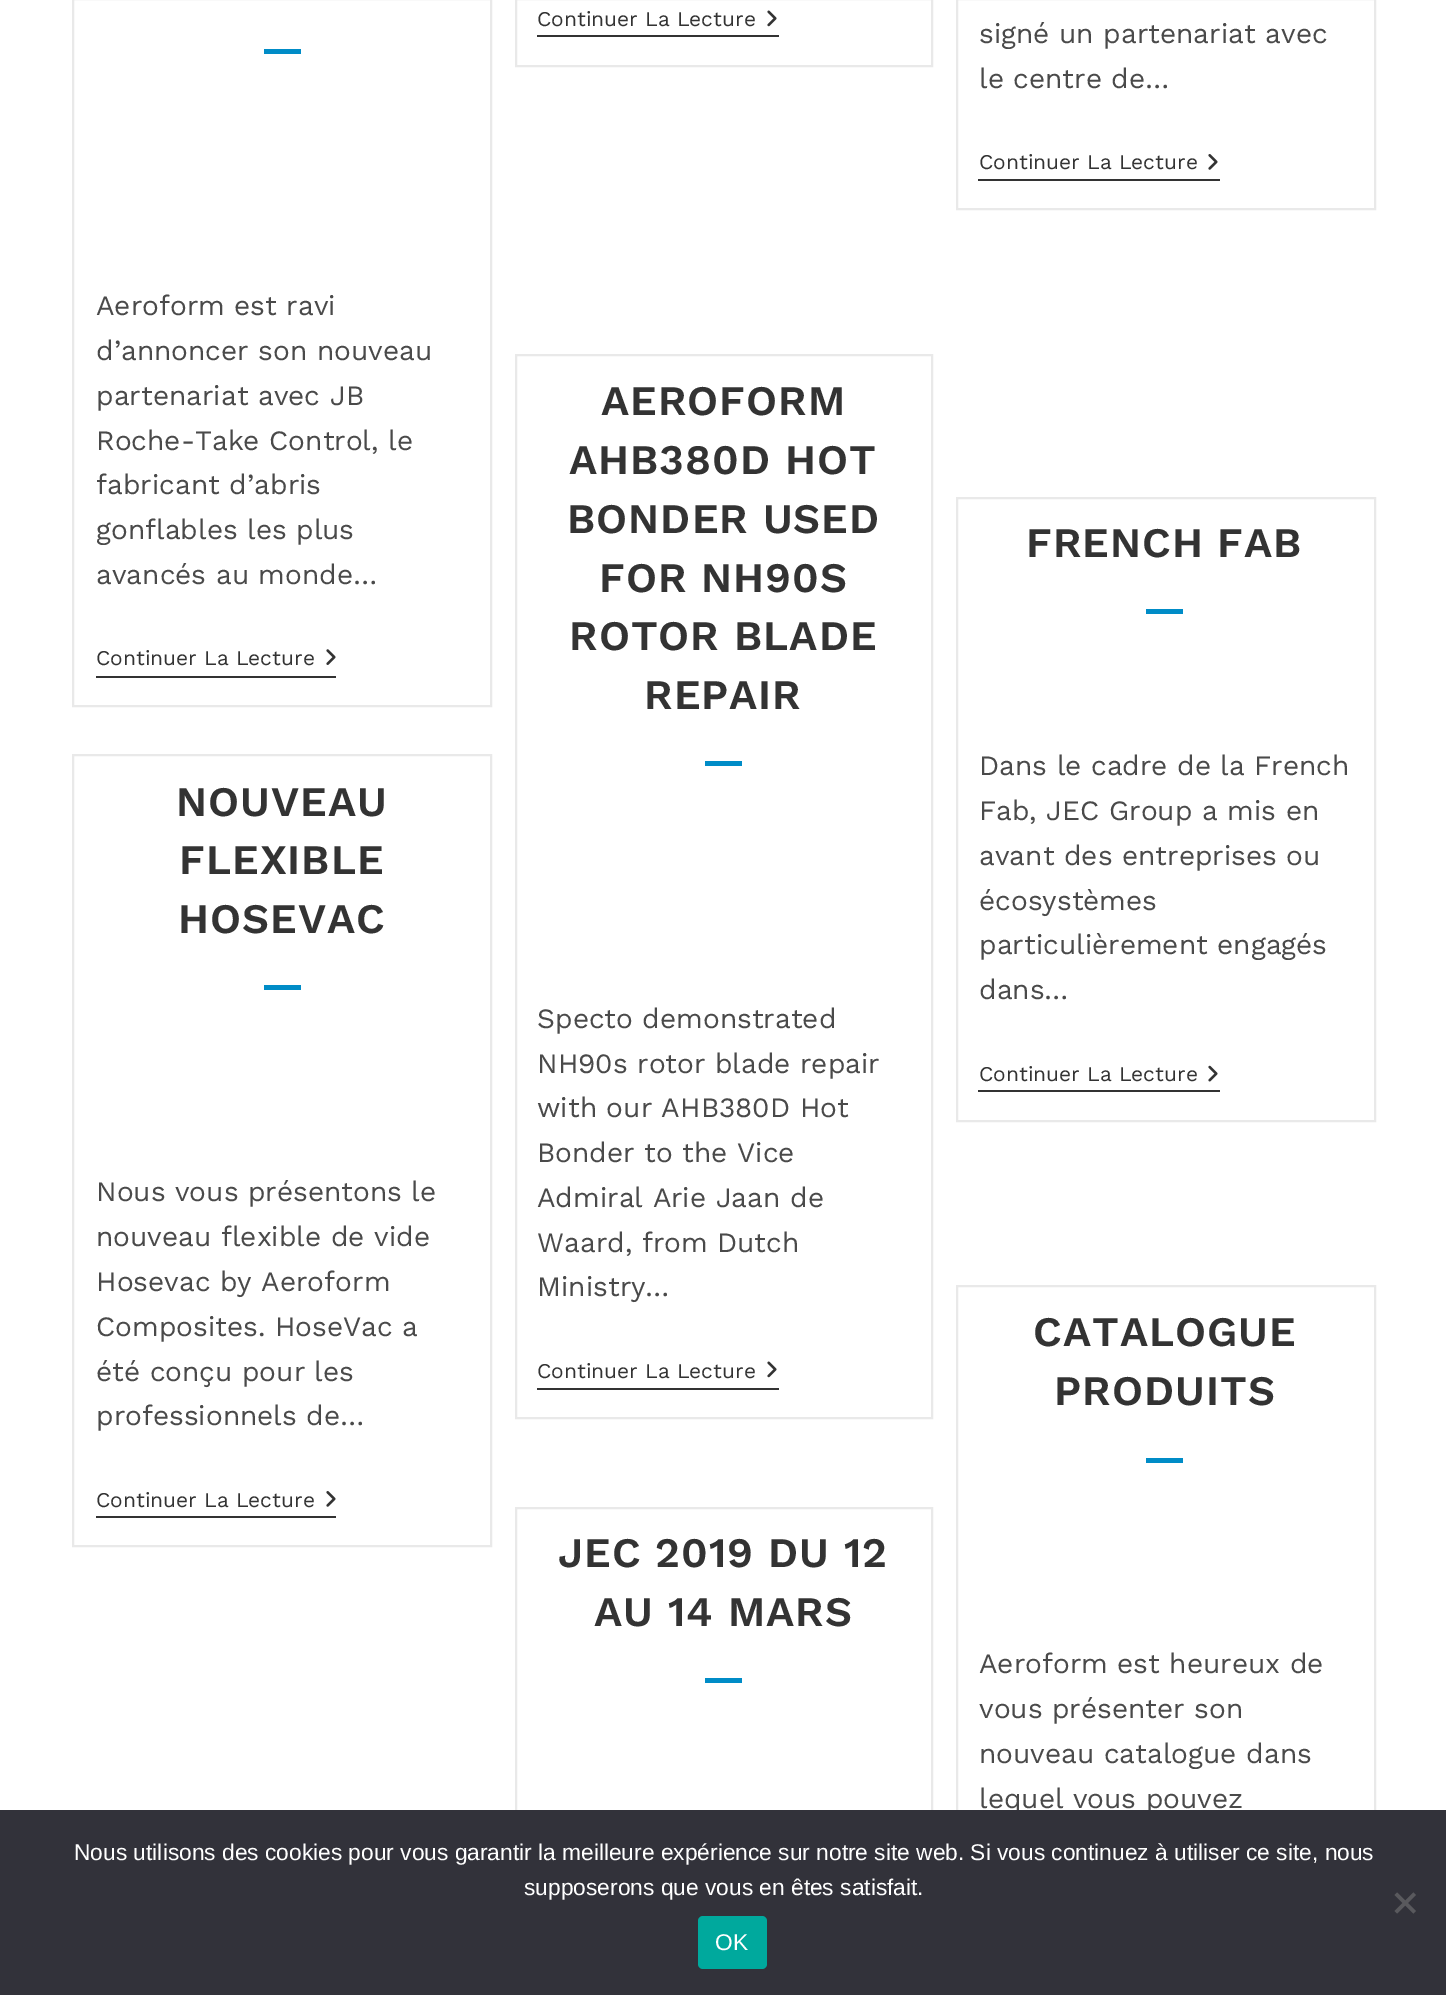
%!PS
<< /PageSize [1446 1995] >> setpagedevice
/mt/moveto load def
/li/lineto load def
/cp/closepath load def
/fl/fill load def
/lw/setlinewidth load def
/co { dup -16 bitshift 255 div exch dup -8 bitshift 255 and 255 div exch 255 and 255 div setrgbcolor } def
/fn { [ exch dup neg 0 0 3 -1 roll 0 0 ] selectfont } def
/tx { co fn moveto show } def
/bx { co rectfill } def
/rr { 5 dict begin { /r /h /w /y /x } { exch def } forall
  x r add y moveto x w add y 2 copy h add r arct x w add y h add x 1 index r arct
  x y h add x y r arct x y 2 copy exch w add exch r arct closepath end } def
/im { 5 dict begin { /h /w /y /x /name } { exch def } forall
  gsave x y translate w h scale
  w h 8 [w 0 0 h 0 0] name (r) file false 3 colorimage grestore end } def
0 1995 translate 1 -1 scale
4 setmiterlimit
0 0 1446 1995 16#FFFFFF bx
16#E9E9E9 co
2 lw
516 -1 416 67 rectstroke
537 35 242 2 16#333333 bx
(media/1.raw) 767 10 10 17 im
16#E9E9E9 co
957 -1 418 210 rectstroke
978 179 242 2 16#333333 bx
(media/2.raw) 1208 154 10 16 im
16#E9E9E9 co
73 -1 418 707 rectstroke
264 49 37 5 16#008CC7 bx
96 676 240 2 16#333333 bx
(media/3.raw) 326 649 10 16 im
16#E9E9E9 co
516 355 416 1063 rectstroke
705 761 37 5 16#008CC7 bx
537 1388 242 2 16#333333 bx
(media/1.raw) 767 1361 10 17 im
16#E9E9E9 co
957 498 418 623 rectstroke
1146 609 37 5 16#008CC7 bx
978 1090 242 2 16#333333 bx
(media/4.raw) 1208 1065 10 17 im
16#E9E9E9 co
73 755 418 791 rectstroke
264 985 37 5 16#008CC7 bx
96 1516 240 2 16#333333 bx
(media/2.raw) 326 1491 10 16 im
16#E9E9E9 co
516 1508 416 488 rectstroke
705 1678 37 5 16#008CC7 bx
16#E9E9E9 co
957 1286 418 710 rectstroke
1146 1458 37 5 16#008CC7 bx
(Continuer La Lecture) 537 26 /WorkSans-Regular 21 16#333333 tx
(signé un partenariat avec) 979 43 /WorkSans-Regular 28 16#4A4A4A tx
(le centre de…) 979 88 /WorkSans-Regular 28 16#4A4A4A tx
(Continuer La Lecture) 979 169 /WorkSans-Regular 21 16#333333 tx
(Aeroform est ravi) 96 315 /WorkSans-Regular 28 16#4A4A4A tx
(d’annoncer son nouveau) 96 360 /WorkSans-Regular 28 16#4A4A4A tx
(partenariat avec JB) 96 405 /WorkSans-Regular 28 16#4A4A4A tx
(Roche-Take Control, le) 96 450 /WorkSans-Regular 28 16#4A4A4A tx
(fabricant d’abris) 96 494 /WorkSans-Regular 28 16#4A4A4A tx
(gonflables les plus) 96 539 /WorkSans-Regular 28 16#4A4A4A tx
(avancés au monde…) 96 584 /WorkSans-Regular 28 16#4A4A4A tx
(Continuer La Lecture) 96 665 /WorkSans-Regular 21 16#333333 tx
/WorkSans-SemiBold 42 fn
601 415 mt 1 0 (AEROFORM) ashow
569 474 mt 1 0 (AHB380D HOT) ashow
567 533 mt 1 0 (BONDER USED) ashow
599 592 mt 1 0 (FOR NH90S) ashow
569 650 mt 1 0 (ROTOR BLADE) ashow
644 709 mt 1 0 (REPAIR) ashow
(Specto demonstrated) 537 1028 /WorkSans-Regular 28 16#4A4A4A tx
(NH90s rotor blade repair) 537 1073 /WorkSans-Regular 28 16#4A4A4A tx
(with our AHB380D Hot) 537 1117 /WorkSans-Regular 28 16#4A4A4A tx
(Bonder to the Vice) 537 1162 /WorkSans-Regular 28 16#4A4A4A tx
(Admiral Arie Jaan de) 537 1207 /WorkSans-Regular 28 16#4A4A4A tx
(Waard, from Dutch) 537 1252 /WorkSans-Regular 28 16#4A4A4A tx
(Ministry…) 537 1296 /WorkSans-Regular 28 16#4A4A4A tx
(Continuer La Lecture) 537 1378 /WorkSans-Regular 21 16#333333 tx
/WorkSans-SemiBold 42 fn
1026 557 mt 1 0 (FRENCH FAB) ashow
(Dans le cadre de la French) 979 775 /WorkSans-Regular 28 16#4A4A4A tx
(Fab, JEC Group a mis en) 979 820 /WorkSans-Regular 28 16#4A4A4A tx
(avant des entreprises ou) 979 865 /WorkSans-Regular 28 16#4A4A4A tx
(écosystèmes) 979 910 /WorkSans-Regular 28 16#4A4A4A tx
(particulièrement engagés) 979 954 /WorkSans-Regular 28 16#4A4A4A tx
(dans…) 979 999 /WorkSans-Regular 28 16#4A4A4A tx
(Continuer La Lecture) 979 1081 /WorkSans-Regular 21 16#333333 tx
/WorkSans-SemiBold 42 fn
176 816 mt 1 0 (NOUVEAU) ashow
179 874 mt 1 0 (FLEXIBLE) ashow
178 933 mt 1 0 (HOSEVAC) ashow
(Nous vous présentons le) 96 1201 /WorkSans-Regular 28 16#4A4A4A tx
(nouveau flexible de vide) 96 1246 /WorkSans-Regular 28 16#4A4A4A tx
(Hosevac by Aeroform) 96 1291 /WorkSans-Regular 28 16#4A4A4A tx
(Composites. HoseVac a) 96 1336 /WorkSans-Regular 28 16#4A4A4A tx
(été conçu pour les) 96 1381 /WorkSans-Regular 28 16#4A4A4A tx
(professionnels de…) 96 1425 /WorkSans-Regular 28 16#4A4A4A tx
(Continuer La Lecture) 96 1507 /WorkSans-Regular 21 16#333333 tx
/WorkSans-SemiBold 42 fn
558 1567 mt 1 0 (JEC 2019 DU 12) ashow
594 1626 mt 1 0 (AU 14 MARS) ashow
1033 1346 mt 1 0 (CATALOGUE) ashow
1054 1405 mt 1 0 (PRODUITS) ashow
(Aeroform est heureux de) 979 1673 /WorkSans-Regular 28 16#4A4A4A tx
(vous présenter son) 979 1718 /WorkSans-Regular 28 16#4A4A4A tx
(nouveau catalogue dans) 979 1763 /WorkSans-Regular 28 16#4A4A4A tx
(lequel vous pouvez) 979 1808 /WorkSans-Regular 28 16#4A4A4A tx
0 1810 1446 185 16#32323A bx
(Nous utilisons des cookies pour vous garantir la meilleure expérience sur notre site web. Si vous continuez à utiliser ce site, nous) 74 1860 /LiberationSans-Regular 22.75 16#FFFFFF tx
(supposerons que vous en êtes satisfait.) 524 1895 /LiberationSans-Regular 22.75 16#FFFFFF tx
16#59595D co
1413.5 1892.5 mt 1416 1895 li 1397 1913.5 li 1394.5 1911 li cp fl
1394.5 1895 mt 1397 1892.5 li 1416 1911 li 1413.5 1913.5 li cp fl
16#00A99D co
698 1916 69 53 5 rr fl
(OK) 715 1950 /LiberationSans-Regular 22.75 16#FFFFFF tx
showpage
